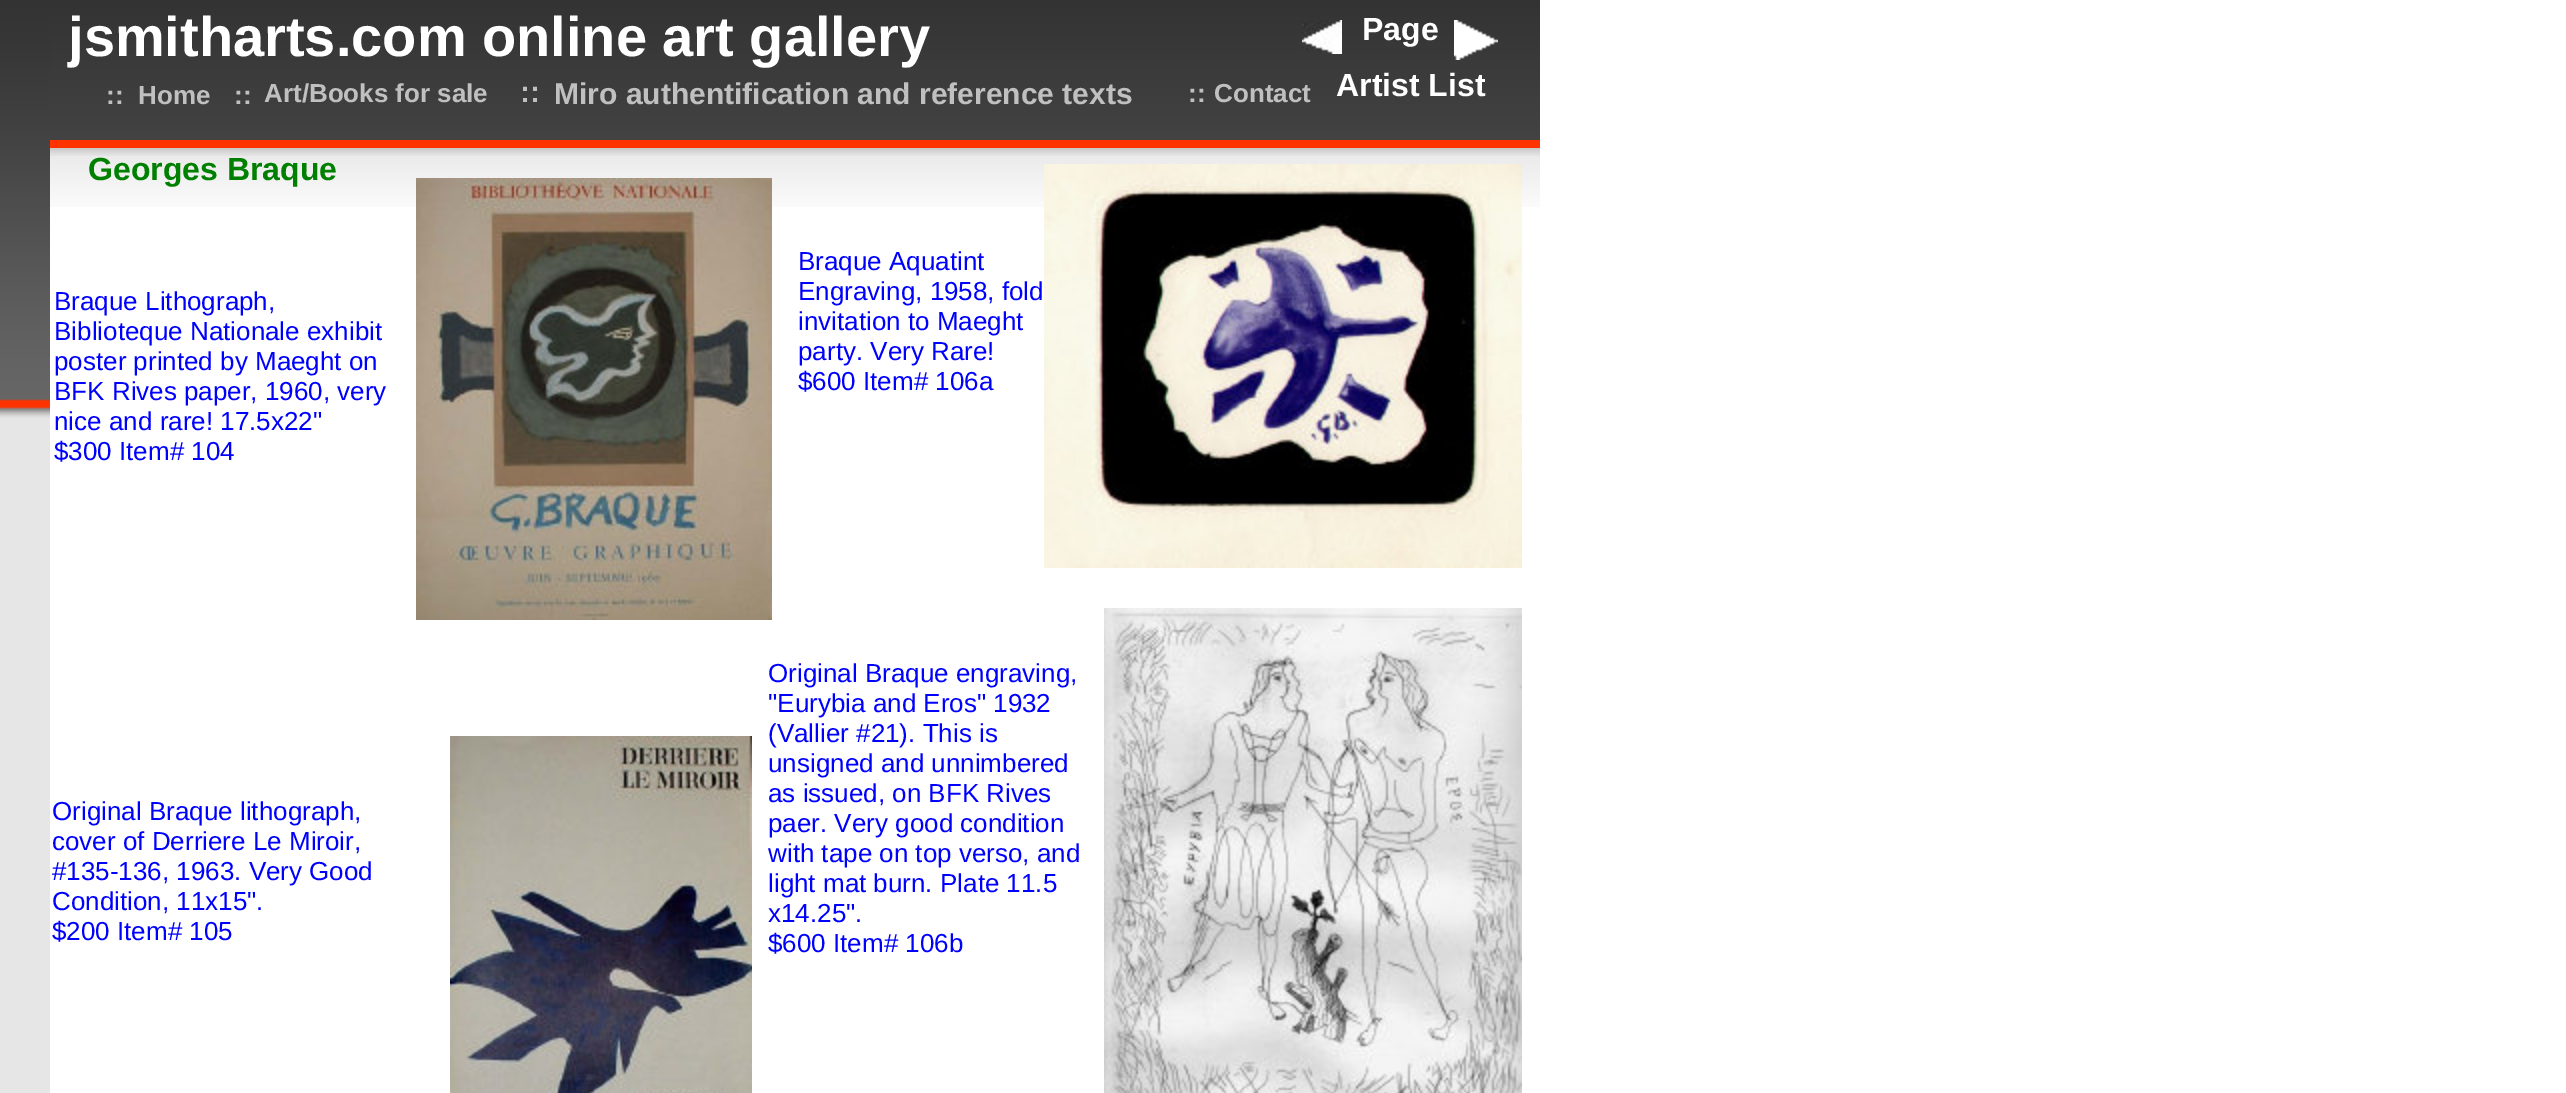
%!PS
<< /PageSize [2566 1093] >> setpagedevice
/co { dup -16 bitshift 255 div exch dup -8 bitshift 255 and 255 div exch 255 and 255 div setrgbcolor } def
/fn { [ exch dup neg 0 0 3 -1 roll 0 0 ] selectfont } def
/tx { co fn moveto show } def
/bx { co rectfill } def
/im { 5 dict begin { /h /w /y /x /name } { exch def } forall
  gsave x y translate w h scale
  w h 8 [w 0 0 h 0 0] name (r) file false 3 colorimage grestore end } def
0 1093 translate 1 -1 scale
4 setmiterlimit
0 0 2566 1093 16#FFFFFF bx
(media/1.raw) 0 0 50 1093 im
(media/2.raw) 50 0 1490 140 im
(media/3.raw) 1302 20 40 34 im
(media/4.raw) 1454 20 44 40 im
50 140 1490 8 16#FF3300 bx
(media/5.raw) 50 148 1490 8 im
(media/6.raw) 50 156 1490 51 im
(media/7.raw) 416 178 356 442 im
(media/8.raw) 1044 164 478 404 im
(media/9.raw) 450 736 302 357 im
(media/10.raw) 1104 608 418 485 im
(jsmitharts.com online art gallery) 68 56 /LiberationSans-Bold 56 16#FFFFFF tx
(Page) 1362 40 /LiberationSans-Bold 32 16#FFFFFF tx
(::) 106 104 /LiberationSans-Bold 26 16#C0C0C0 tx
(Home) 138 104 /LiberationSans-Bold 26 16#C0C0C0 tx
(::) 234 104 /LiberationSans-Bold 26 16#C0C0C0 tx
(Art/Books for sale) 264 102 /LiberationSans-Bold 26 16#C0C0C0 tx
(::) 520 102 /LiberationSans-Bold 30 16#C0C0C0 tx
(Miro authentification and reference texts) 554 104 /LiberationSans-Bold 30 16#C0C0C0 tx
(::) 1188 102 /LiberationSans-Bold 26 16#C0C0C0 tx
(Contact) 1214 102 /LiberationSans-Bold 26 16#C0C0C0 tx
(Artist List) 1336 96 /LiberationSans-Bold 32 16#FFFFFF tx
(Georges Braque) 88 180 /LiberationSans-Bold 32 16#008000 tx
(Braque Aquatint) 798 270 /LiberationSans-Regular 26 16#0000FF tx
(Engraving, 1958, fold) 798 300 /LiberationSans-Regular 26 16#0000FF tx
(invitation to Maeght) 798 330 /LiberationSans-Regular 26 16#0000FF tx
(party. Very Rare!) 798 360 /LiberationSans-Regular 26 16#0000FF tx
($600 Item# 106a) 798 390 /LiberationSans-Regular 26 16#0000FF tx
(Braque Lithograph,) 54 310 /LiberationSans-Regular 26 16#0000FF tx
(Biblioteque Nationale exhibit) 54 340 /LiberationSans-Regular 26 16#0000FF tx
(poster printed by Maeght on) 54 370 /LiberationSans-Regular 26 16#0000FF tx
(BFK Rives paper, 1960, very) 54 400 /LiberationSans-Regular 26 16#0000FF tx
(nice and rare! 17.5x22") 54 430 /LiberationSans-Regular 26 16#0000FF tx
($300 Item# 104) 54 460 /LiberationSans-Regular 26 16#0000FF tx
(Original Braque lithograph,) 52 820 /LiberationSans-Regular 26 16#0000FF tx
(cover of Derriere Le Miroir,) 52 850 /LiberationSans-Regular 26 16#0000FF tx
(#135-136, 1963. Very Good) 52 880 /LiberationSans-Regular 26 16#0000FF tx
(Condition, 11x15".) 52 910 /LiberationSans-Regular 26 16#0000FF tx
($200 Item# 105) 52 940 /LiberationSans-Regular 26 16#0000FF tx
(Original Braque engraving,) 768 682 /LiberationSans-Regular 26 16#0000FF tx
("Eurybia and Eros" 1932) 768 712 /LiberationSans-Regular 26 16#0000FF tx
(\(Vallier #21\). This is) 768 742 /LiberationSans-Regular 26 16#0000FF tx
(unsigned and unnimbered) 768 772 /LiberationSans-Regular 26 16#0000FF tx
(as issued, on BFK Rives) 768 802 /LiberationSans-Regular 26 16#0000FF tx
(paer. Very good condition) 768 832 /LiberationSans-Regular 26 16#0000FF tx
(with tape on top verso, and) 768 862 /LiberationSans-Regular 26 16#0000FF tx
(light mat burn. Plate 11.5) 768 892 /LiberationSans-Regular 26 16#0000FF tx
(x14.25".) 768 922 /LiberationSans-Regular 26 16#0000FF tx
($600 Item# 106b) 768 952 /LiberationSans-Regular 26 16#0000FF tx
showpage
